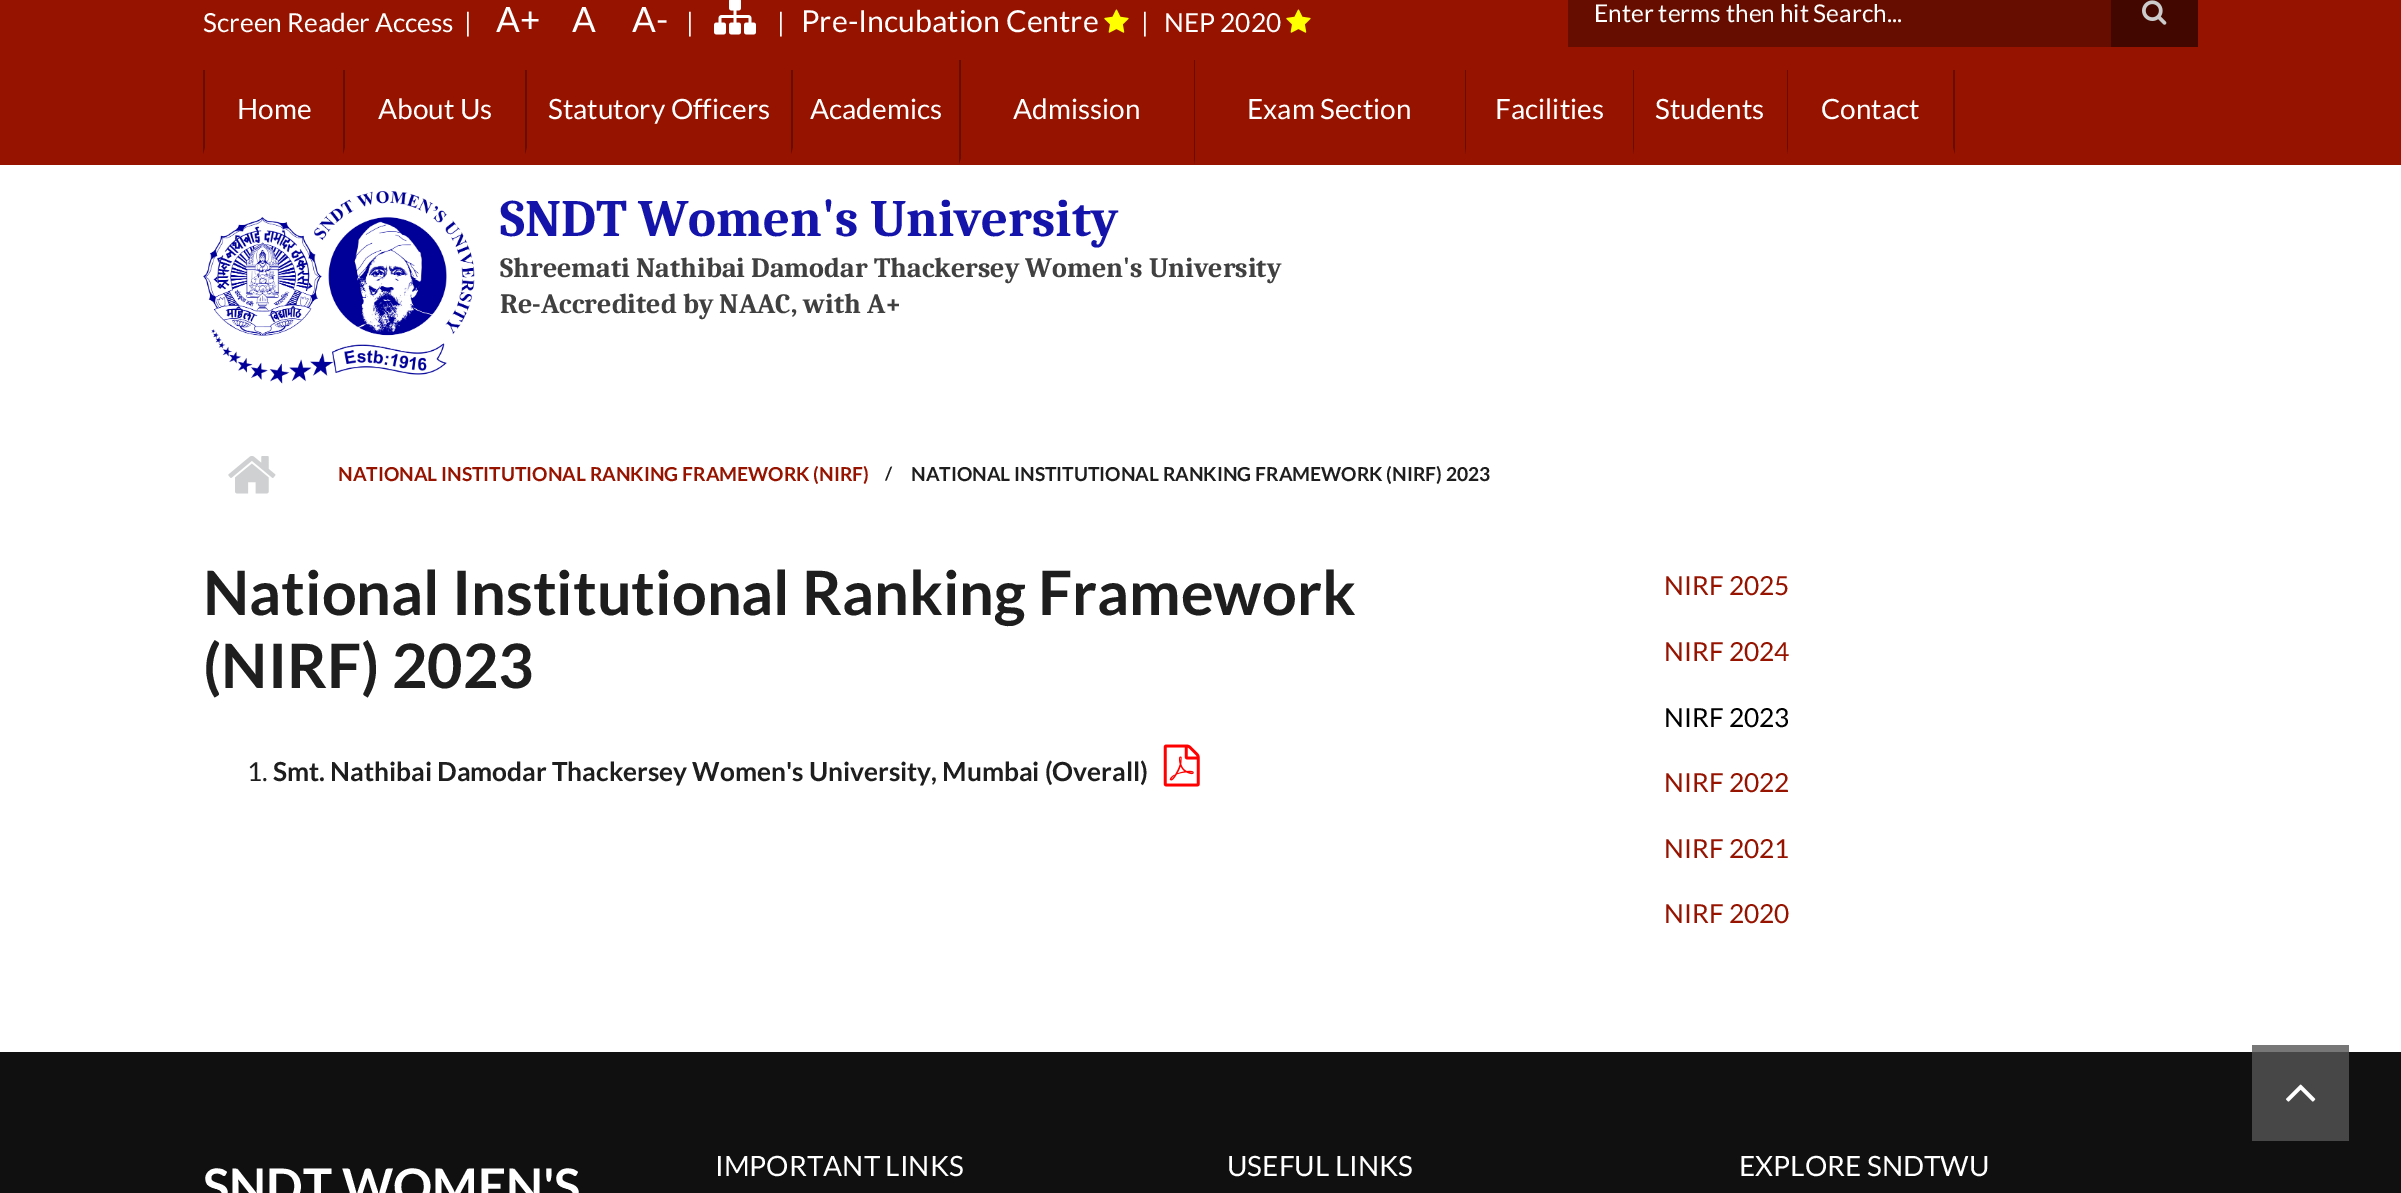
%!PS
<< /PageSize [2401 1193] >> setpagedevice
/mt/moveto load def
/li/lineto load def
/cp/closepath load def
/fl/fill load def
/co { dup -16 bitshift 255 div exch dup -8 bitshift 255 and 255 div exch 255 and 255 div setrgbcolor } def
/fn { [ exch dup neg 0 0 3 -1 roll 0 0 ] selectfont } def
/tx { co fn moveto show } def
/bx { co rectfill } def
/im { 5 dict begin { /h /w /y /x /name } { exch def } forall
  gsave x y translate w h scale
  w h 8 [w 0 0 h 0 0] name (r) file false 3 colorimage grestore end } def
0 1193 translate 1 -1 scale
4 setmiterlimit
0 0 2401 1193 16#FFFFFF bx
2252 1045 97 7 16#777777 bx
0 0 2401 165 16#961300 bx
1568 0 543 47 16#660D00 bx
2111 0 87 47 16#420800 bx
(media/1.raw) 2142 0 25 25 im
(media/2.raw) 714 0 42 35 im
(media/3.raw) 1104 9 25 24 im
(media/3.raw) 1286 9 25 24 im
16#660D00 co
203 154 mt 203 70 li 205 70 li 205 147 li cp fl
343 154 mt 343 70 li 345 70 li 345 147 li cp fl
525 154 mt 525 70 li 527 70 li 527 147 li cp fl
791 154 mt 791 70 li 793 70 li 793 147 li cp fl
959 164 mt 959 60 li 961 60 li 961 158 li cp fl
1194 164 mt 1194 60 li 1195 60 li 1195 158 li cp fl
1465 154 mt 1465 70 li 1466 70 li 1466 147 li cp fl
1633 154 mt 1633 70 li 1634 70 li 1634 147 li cp fl
1955 70 mt 1955 154 li 1953 147 li 1953 70 li cp fl
1787 154 mt 1787 70 li 1788 70 li 1788 147 li cp fl
(media/4.raw) 203 191 272 193 im
(media/5.raw) 228 456 48 38 im
(media/6.raw) 1163 744 37 43 im
0 1052 2401 141 16#101010 bx
2252 1052 97 89 16#474747 bx
(media/7.raw) 2286 1084 30 18 im
(Enter terms then hit Search...) 1594 22 /Lato-Regular 24.5 16#FFFFFF tx
(Screen Reader Access) 203 32 /Lato-Regular 26.25 16#FFFFFF tx
(|) 464 32 /Lato-Regular 26.25 16#FFFFFF tx
(A+) 496 32 /Lato-Regular 35 16#FFFFFF tx
(A) 572 32 /Lato-Regular 35 16#FFFFFF tx
(A-) 632 32 /Lato-Regular 35 16#FFFFFF tx
(|) 686 32 /Lato-Regular 26.25 16#FFFFFF tx
(|) 777 32 /Lato-Regular 26.25 16#FFFFFF tx
(Pre-Incubation Centre) 801 32 /Lato-Regular 30.25 16#FFFFFF tx
(|) 1141 32 /Lato-Regular 26.25 16#FFFFFF tx
(NEP 2020) 1164 32 /Lato-Regular 26.25 16#FFFFFF tx
(Home) 237 119 /Lato-Regular 28 16#FFFFFF tx
(About Us) 378 119 /Lato-Regular 28 16#FFFFFF tx
(Statutory Officers) 548 119 /Lato-Regular 28 16#FFFFFF tx
(Academics) 810 119 /Lato-Regular 28 16#FFFFFF tx
(Admission) 1013 119 /Lato-Regular 28 16#FFFFFF tx
(Exam Section) 1247 119 /Lato-Regular 28 16#FFFFFF tx
(Facilities) 1495 119 /Lato-Regular 28 16#FFFFFF tx
(Students) 1655 119 /Lato-Regular 28 16#FFFFFF tx
(Contact) 1821 119 /Lato-Regular 28 16#FFFFFF tx
(SNDT Women's University) 500 236 /Caladea-Bold 52.5 16#1414AA tx
(Shreemati Nathibai Damodar Thackersey Women's University) 500 277 /Caladea-Bold 28 16#404040 tx
(Re-Accredited by NAAC, with A+) 500 313 /Caladea-Bold 28 16#404040 tx
(NATIONAL INSTITUTIONAL RANKING FRAMEWORK \(NIRF\)) 338 481 /Lato-Bold 19.25 16#961300 tx
(/) 885 480 /Lato-Bold 18 16#1E1E1E tx
(NATIONAL INSTITUTIONAL RANKING FRAMEWORK \(NIRF\) 2023) 911 481 /Lato-Bold 19.25 16#1E1E1E tx
(National Institutional Ranking Framework) 203 615 /Lato-Bold 61.25 16#1E1E1E tx
(\(NIRF\) 2023) 203 688 /Lato-Bold 61.25 16#1E1E1E tx
(1.) 247 781 /Lato-Regular 26.25 16#1E1E1E tx
(Smt. Nathibai Damodar Thackersey Women's University, Mumbai \(Overall\)) 273 781 /Lato-Bold 26.25 16#1E1E1E tx
(NIRF 2025) 1664 595 /Lato-Regular 26.25 16#961300 tx
(NIRF 2024) 1664 661 /Lato-Regular 26.25 16#961300 tx
(NIRF 2023) 1664 727 /Lato-Regular 26.25 16#000000 tx
(NIRF 2022) 1664 792 /Lato-Regular 26.25 16#961300 tx
(NIRF 2021) 1664 858 /Lato-Regular 26.25 16#961300 tx
(NIRF 2020) 1664 923 /Lato-Regular 26.25 16#961300 tx
(SNDT WOMEN'S) 203 1204 /Lato-Bold 49 16#FFFFFF tx
(IMPORTANT LINKS) 715 1176 /Lato-Regular 28 16#FFFFFF tx
(USEFUL LINKS) 1227 1176 /Lato-Regular 28 16#FFFFFF tx
(EXPLORE SNDTWU) 1739 1176 /Lato-Regular 28 16#FFFFFF tx
showpage
